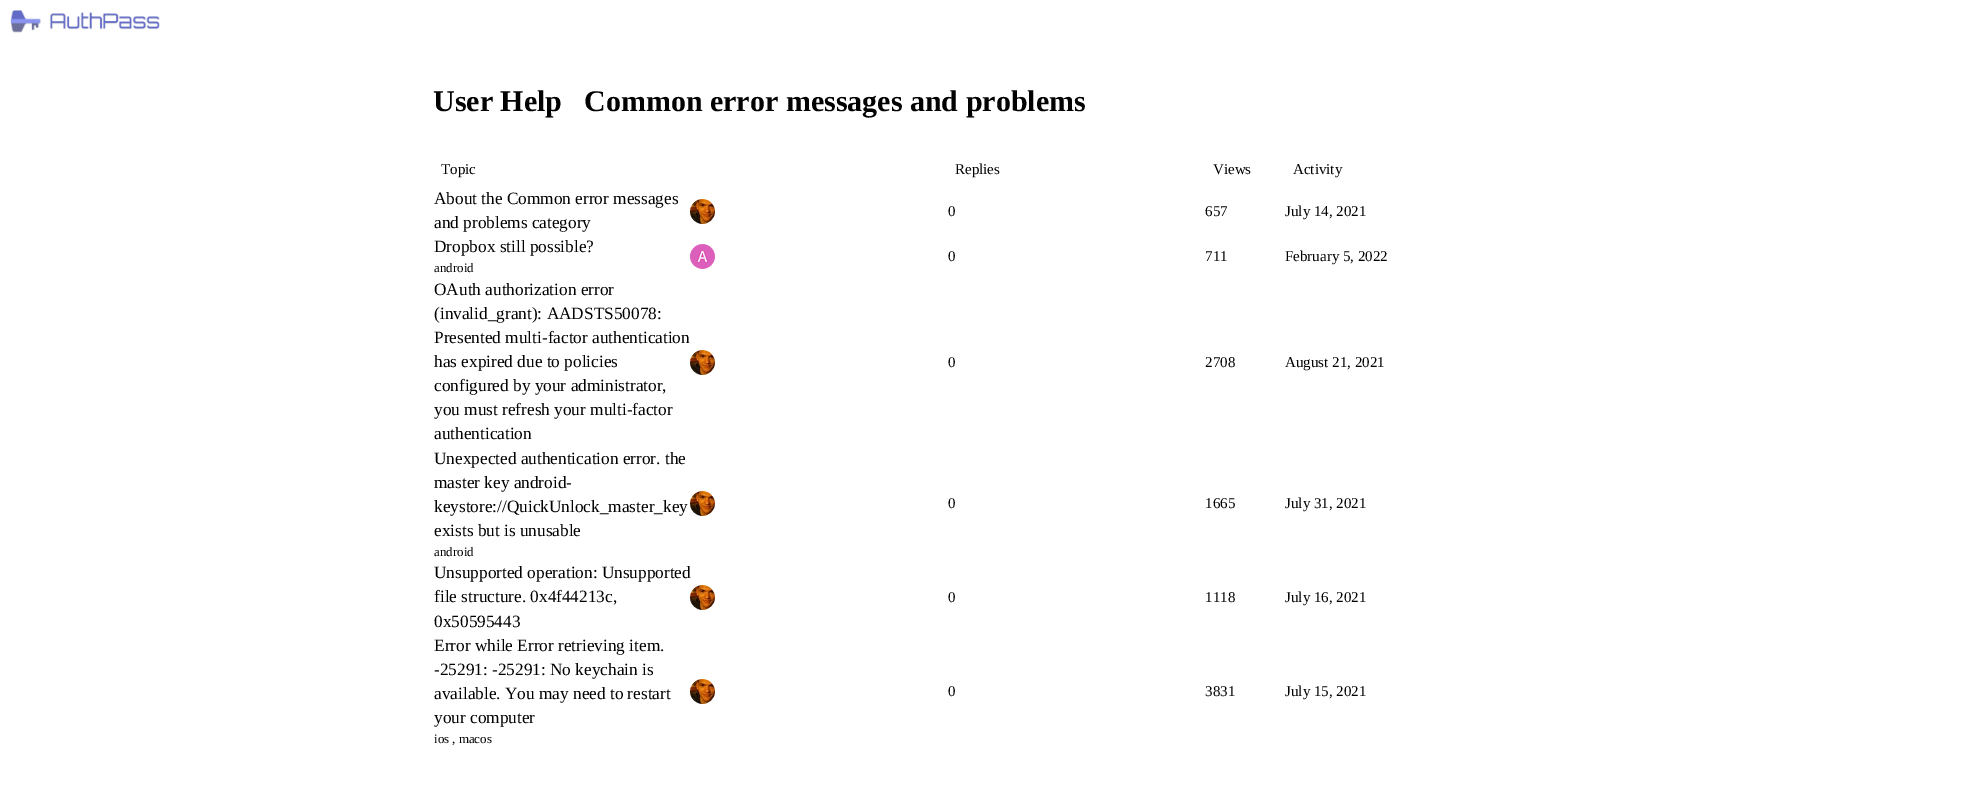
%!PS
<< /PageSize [1975 805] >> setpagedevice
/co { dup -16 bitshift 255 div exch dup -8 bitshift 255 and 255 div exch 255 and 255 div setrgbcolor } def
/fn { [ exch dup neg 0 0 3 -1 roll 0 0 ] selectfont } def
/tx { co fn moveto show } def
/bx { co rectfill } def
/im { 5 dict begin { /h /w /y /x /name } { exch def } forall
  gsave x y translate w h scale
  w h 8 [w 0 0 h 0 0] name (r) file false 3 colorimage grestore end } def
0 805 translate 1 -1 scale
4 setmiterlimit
0 0 1975 805 16#FFFFFF bx
(media/1.raw) 10 10 150 23 im
(media/2.raw) 690 199 25 25 im
(media/3.raw) 690 244 25 25 im
(media/2.raw) 690 350 25 25 im
(media/4.raw) 690 491 25 25 im
(media/2.raw) 690 585 25 25 im
(media/2.raw) 690 679 25 25 im
(User Help) 433 111 /LiberationSerif-Bold 30 16#000000 tx
(Common error messages and problems) 584 111 /LiberationSerif-Bold 30 16#000000 tx
(Topic) 441 174 /LiberationSerif-Regular 15 16#000000 tx
(Replies) 955 174 /LiberationSerif-Regular 15 16#000000 tx
(Views) 1213 174 /LiberationSerif-Regular 15 16#000000 tx
(Activity) 1293 174 /LiberationSerif-Regular 15 16#000000 tx
(About the Common error messages) 434 204 /LiberationSerif-Regular 17.25 16#000000 tx
(and problems category) 434 228 /LiberationSerif-Regular 17.25 16#000000 tx
(0) 948 216 /LiberationSerif-Regular 15 16#000000 tx
(657) 1205 216 /LiberationSerif-Regular 15 16#000000 tx
(July 14, 2021) 1285 216 /LiberationSerif-Regular 15 16#000000 tx
(Dropbox still possible?) 434 252 /LiberationSerif-Regular 17.25 16#000000 tx
(android) 434 272 /LiberationSerif-Regular 13 16#000000 tx
(0) 948 261 /LiberationSerif-Regular 15 16#000000 tx
(711) 1205 261 /LiberationSerif-Regular 15 16#000000 tx
(February 5, 2022) 1285 261 /LiberationSerif-Regular 15 16#000000 tx
(OAuth authorization error) 434 295 /LiberationSerif-Regular 17.25 16#000000 tx
(\(invalid_grant\): AADSTS50078:) 434 319 /LiberationSerif-Regular 17.25 16#000000 tx
(Presented multi-factor authentication) 434 343 /LiberationSerif-Regular 17.25 16#000000 tx
(has expired due to policies) 434 367 /LiberationSerif-Regular 17.25 16#000000 tx
(configured by your administrator,) 434 391 /LiberationSerif-Regular 17.25 16#000000 tx
(you must refresh your multi-factor) 434 415 /LiberationSerif-Regular 17.25 16#000000 tx
(authentication) 434 439 /LiberationSerif-Regular 17.25 16#000000 tx
(0) 948 367 /LiberationSerif-Regular 15 16#000000 tx
(2708) 1205 367 /LiberationSerif-Regular 15 16#000000 tx
(August 21, 2021) 1285 367 /LiberationSerif-Regular 15 16#000000 tx
(Unexpected authentication error. the) 434 464 /LiberationSerif-Regular 17.25 16#000000 tx
(master key android-) 434 488 /LiberationSerif-Regular 17.25 16#000000 tx
(keystore://QuickUnlock_master_key) 434 512 /LiberationSerif-Regular 17.25 16#000000 tx
(exists but is unusable) 434 536 /LiberationSerif-Regular 17.25 16#000000 tx
(android) 434 556 /LiberationSerif-Regular 13 16#000000 tx
(0) 948 508 /LiberationSerif-Regular 15 16#000000 tx
(1665) 1205 508 /LiberationSerif-Regular 15 16#000000 tx
(July 31, 2021) 1285 508 /LiberationSerif-Regular 15 16#000000 tx
(Unsupported operation: Unsupported) 434 578 /LiberationSerif-Regular 17.25 16#000000 tx
(file structure. 0x4f44213c,) 434 602 /LiberationSerif-Regular 17.25 16#000000 tx
(0x50595443) 434 627 /LiberationSerif-Regular 17.25 16#000000 tx
(0) 948 602 /LiberationSerif-Regular 15 16#000000 tx
(1118) 1205 602 /LiberationSerif-Regular 15 16#000000 tx
(July 16, 2021) 1285 602 /LiberationSerif-Regular 15 16#000000 tx
(Error while Error retrieving item.) 434 651 /LiberationSerif-Regular 17.25 16#000000 tx
(-25291: -25291: No keychain is) 434 675 /LiberationSerif-Regular 17.25 16#000000 tx
(available. You may need to restart) 434 699 /LiberationSerif-Regular 17.25 16#000000 tx
(your computer) 434 723 /LiberationSerif-Regular 17.25 16#000000 tx
(ios) 434 743 /LiberationSerif-Regular 13 16#000000 tx
(, macos) 452 743 /LiberationSerif-Regular 13 16#000000 tx
(0) 948 696 /LiberationSerif-Regular 15 16#000000 tx
(3831) 1205 696 /LiberationSerif-Regular 15 16#000000 tx
(July 15, 2021) 1285 696 /LiberationSerif-Regular 15 16#000000 tx
showpage
